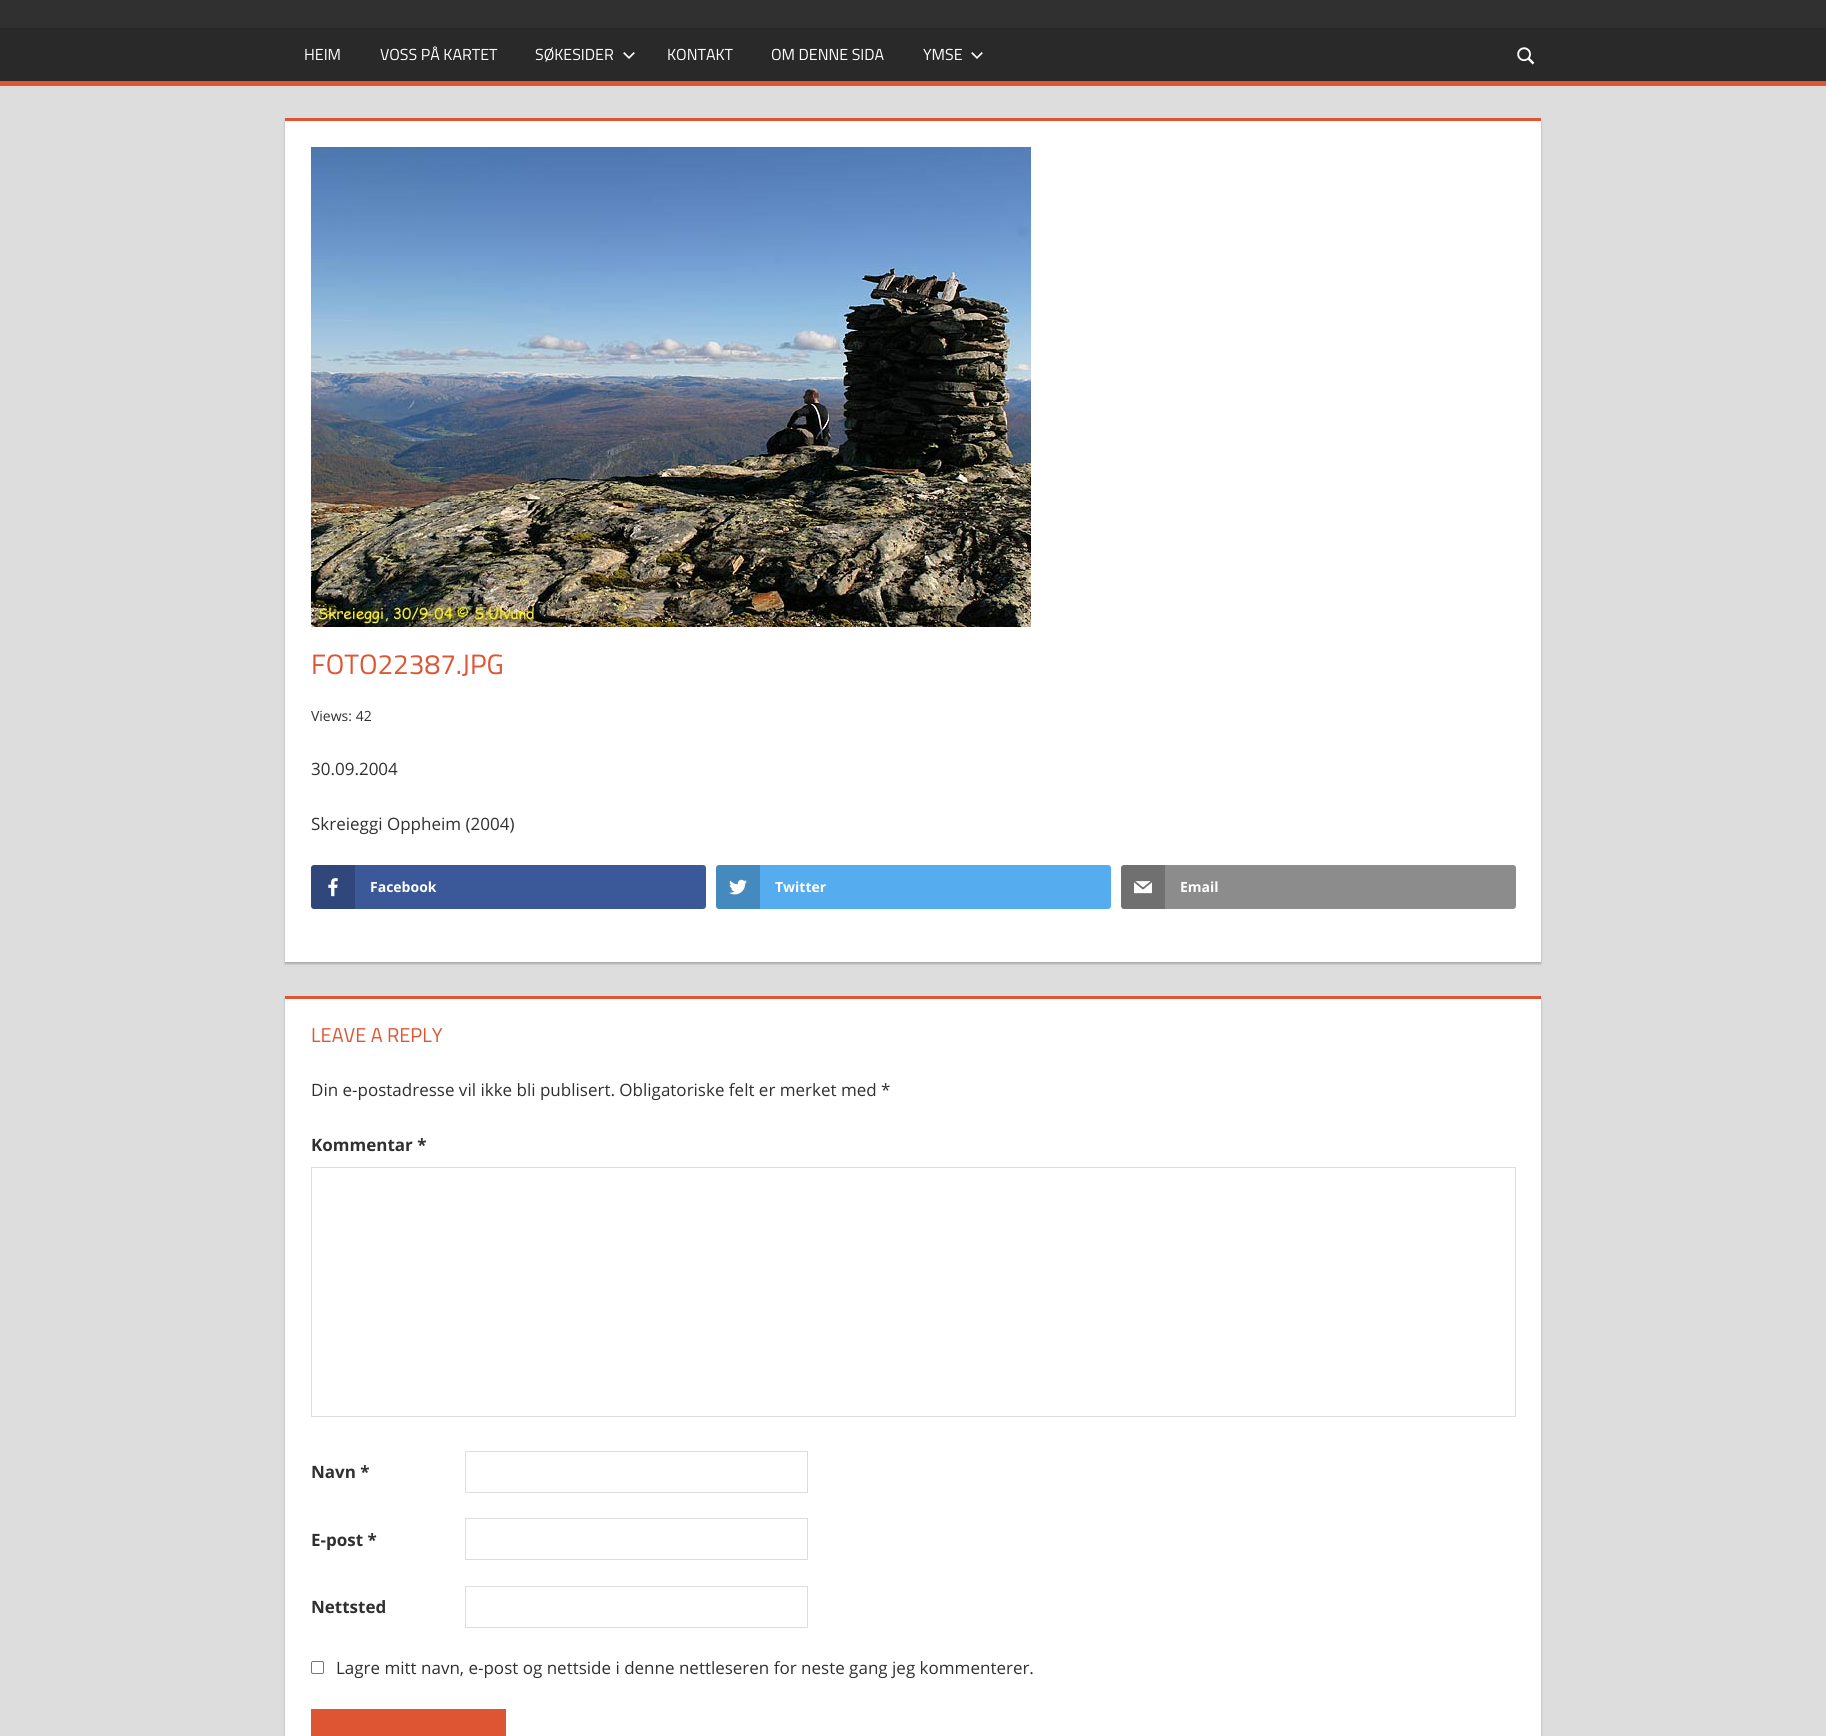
import math
import cairo

surface = cairo.ImageSurface(cairo.FORMAT_RGB24, 1826, 1736)
c = cairo.Context(surface)
options = cairo.FontOptions()
options.set_hint_metrics(cairo.HINT_METRICS_OFF)
options.set_hint_style(cairo.HINT_STYLE_NONE)
c.set_font_options(options)
c.set_miter_limit(4)
def C(code):
 c.set_source_rgb(*(v / 255 for v in bytes.fromhex(code[-6:])))
def F(family, size, italic, bold):
 c.select_font_face(family, cairo.FONT_SLANT_ITALIC if italic else cairo.FONT_SLANT_NORMAL, cairo.FONT_WEIGHT_BOLD if bold else cairo.FONT_WEIGHT_NORMAL)
 c.set_font_size(size)
def T(x, y, s):
 c.move_to(x, y)
 c.show_text(s)
def R(x, y, w, h):
 c.rectangle(x, y, w, h)
 c.fill()
def Q(x, y, w, h, r):
 c.new_sub_path()
 for i, (u, v) in enumerate([(x + w - r, y + h - r), (x + r, y + h - r), (x + r, y + r), (x + w - r, y + r)]):
  c.arc(u, v, r, i * math.pi / 2, (i + 1) * math.pi / 2)
 c.close_path()
def S(x, y, w, h, r, blur, alpha):
 c.push_group_with_content(cairo.CONTENT_ALPHA)
 c.set_operator(cairo.OPERATOR_SOURCE)
 for i in range(15, -16, -2):
  e = blur * i / 6
  if min(w, h) + 2 * e > 0:
   c.set_source_rgba(0, 0, 0, alpha * math.erfc((i - 1) / 8.5) / 2)
   Q(x - e, y - e, w + 2 * e, h + 2 * e, max(0, min(r + e + blur * .6, min(w, h) / 2 + e)))
   c.fill()
 c.mask(c.pop_group())
def I(path, x, y, w, h):
 c.save()
 c.set_source_surface(cairo.ImageSurface.create_from_png(path), x, y)
 c.rectangle(x, y, w, h)
 c.fill()
 c.restore()
C('dddddd')
c.paint()
C('303030')
R(0,0,1826,28)
C('292929')
R(0,29,1826,52)
C('272727')
R(0,28,1826,1)
C('dd5533')
R(0,81,1826,5)
F('Titillium Web',16,0,0)
C('ffffff')
T(304,60,'HEIM')
T(380,60,'VOSS PÅ KARTET')
T(535,60,'SØKESIDER')
I('1.png',623,52,12,7)
T(667,60,'KONTAKT')
T(771,60,'OM DENNE SIDA')
T(923,60,'YMSE')
I('1.png',971,52,12,7)
I('2.png',1517,47,18,18)
C('aaaaaa')
S(285,120,1256,844,0,1,1)
C('ffffff')
R(285,121,1256,841)
C('dd5533')
R(285,118,1256,3)
I('3.png',311,147,720,480)
F('Titillium Web',28,0,0)
T(311,674,'FOTO22387.JPG')
F('Open Sans',14,0,0)
C('303030')
T(311,721,'Views: 42')
F('Open Sans',17,0,0)
T(311,775,'30.09.2004')
T(311,830,'Skreieggi Oppheim (2004)')
C('3b5998')
Q(311,865,395,44,3)
c.fill()
c.set_source_rgba(0,0,0,0.2)
c.new_path()
c.move_to(314,865)
c.line_to(355,865)
c.line_to(355,909)
c.line_to(314,909)
c.curve_to(312.5,909,311,907.5,311,906)
c.line_to(311,868)
c.curve_to(311,866.5,312.5,865,314,865)
c.close_path()
c.fill()
I('4.png',328,878,10,19)
F('Open Sans',14,0,1)
C('ffffff')
T(370,892,'Facebook')
C('55acee')
Q(716,865,395,44,3)
c.fill()
c.set_source_rgba(0,0,0,0.2)
c.new_path()
c.move_to(719,865)
c.line_to(760,865)
c.line_to(760,909)
c.line_to(719,909)
c.curve_to(717.5,909,716,907.5,716,906)
c.line_to(716,868)
c.curve_to(716,866.5,717.5,865,719,865)
c.close_path()
c.fill()
I('5.png',729,879,18,16)
C('ffffff')
T(775,892,'Twitter')
C('8c8c8c')
Q(1121,865,395,44,3)
c.fill()
c.set_source_rgba(0,0,0,0.2)
c.new_path()
c.move_to(1124,865)
c.line_to(1165,865)
c.line_to(1165,909)
c.line_to(1124,909)
c.curve_to(1122.5,909,1121,907.5,1121,906)
c.line_to(1121,868)
c.curve_to(1121,866.5,1122.5,865,1124,865)
c.close_path()
c.fill()
I('6.png',1134,881,18,13)
C('ffffff')
T(1180,892,'Email')
C('aaaaaa')
S(285,998,1256,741,0,1,1)
C('ffffff')
R(285,999,1256,737)
C('dd5533')
R(285,996,1256,3)
F('Titillium Web',20,0,0)
T(311,1042,'LEAVE A REPLY')
F('Open Sans',17,0,0)
C('303030')
T(311,1096,'Din e-postadresse vil ikke bli publisert. Obligatoriske felt er merket med *')
F('Open Sans',17,0,1)
T(311,1151,'Kommentar *')
c.rectangle(311.5,1167.5,1204,249)
C('dddddd')
c.set_line_width(1)
c.stroke()
C('303030')
T(311,1478,'Navn *')
c.rectangle(465.5,1451.5,342,41)
C('dddddd')
c.stroke()
C('303030')
T(311,1546,'E-post *')
c.rectangle(465.5,1518.5,342,41)
C('dddddd')
c.stroke()
C('303030')
T(311,1613,'Nettsted')
c.rectangle(465.5,1586.5,342,41)
C('dddddd')
c.stroke()
Q(311.5,1661.5,12,12,1.5)
C('767676')
c.stroke()
F('Open Sans',17,0,0)
C('303030')
T(336,1674,'Lagre mitt navn, e-post og nettside i denne nettleseren for neste gang jeg kommenterer.')
C('dd5533')
R(311,1709,195,27)
surface.write_to_png('o.png')
